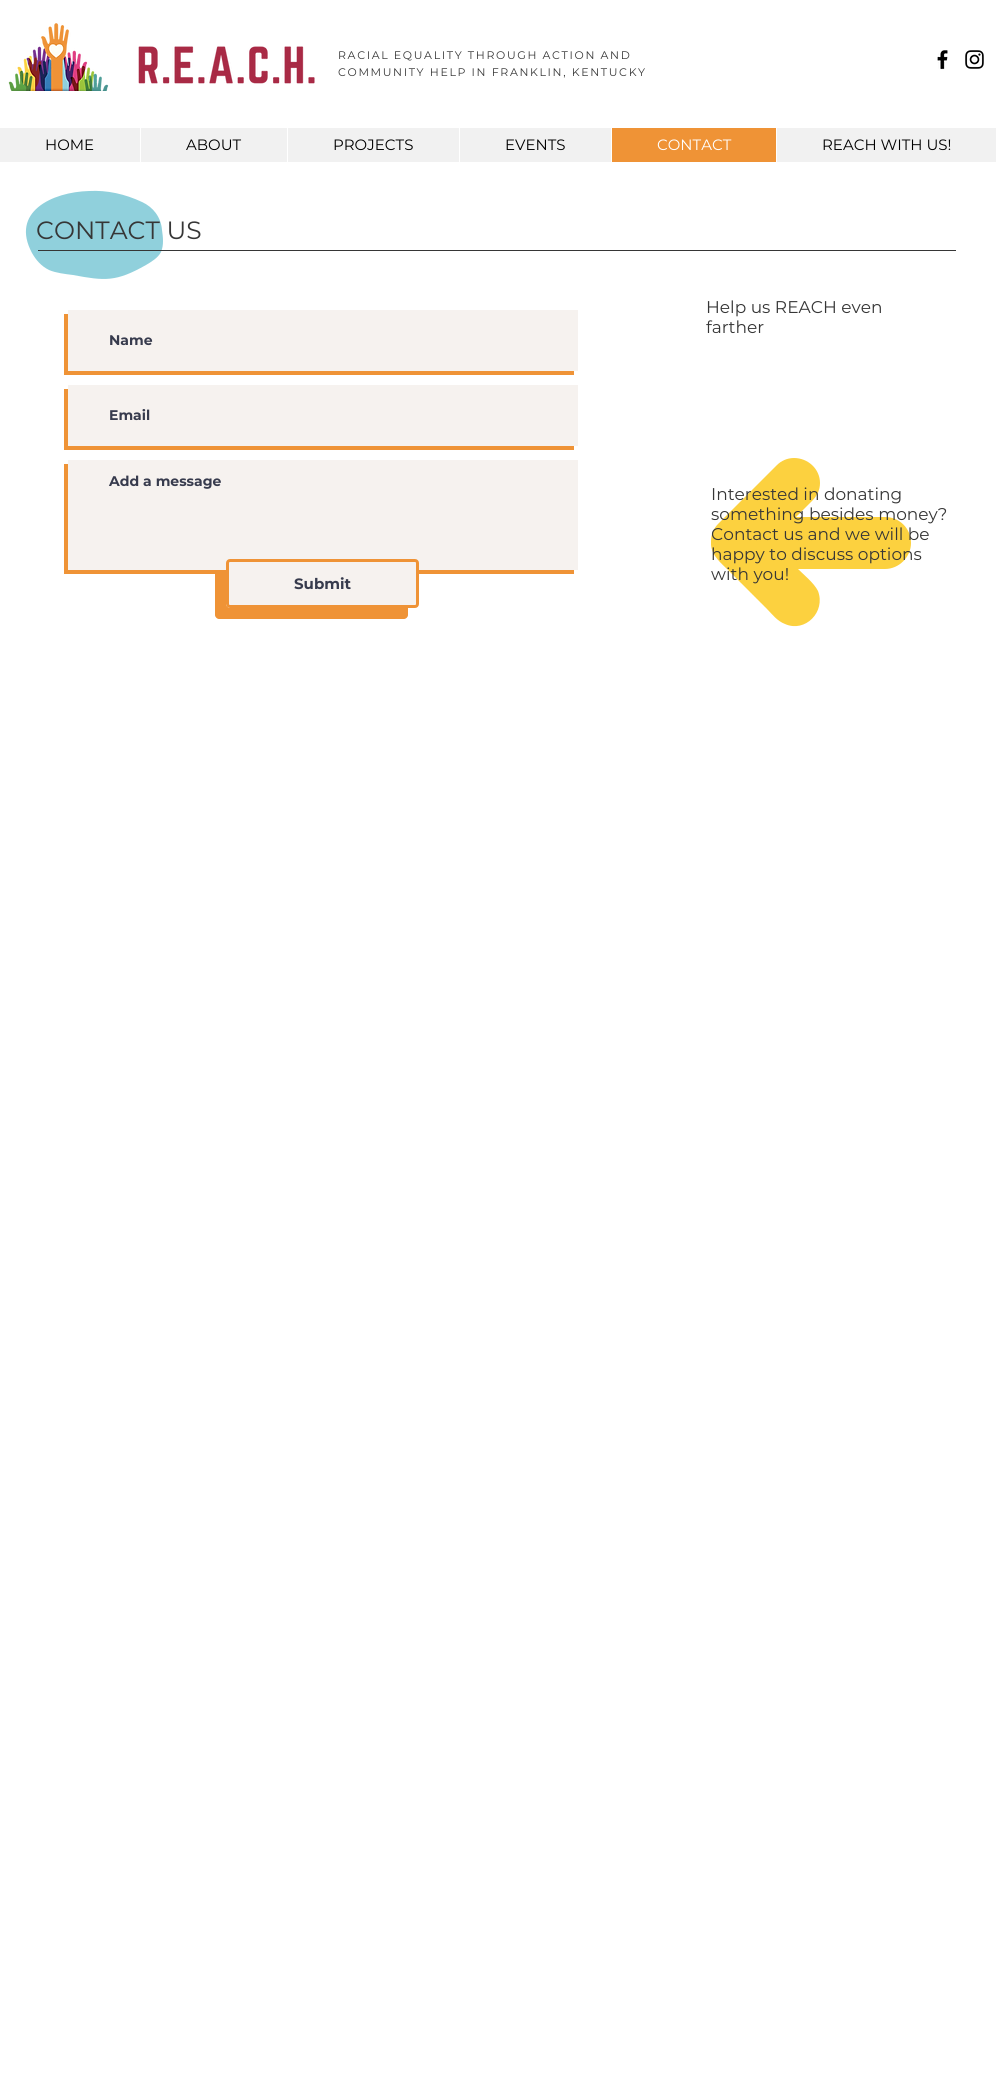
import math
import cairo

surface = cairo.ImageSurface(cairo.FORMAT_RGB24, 996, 2085)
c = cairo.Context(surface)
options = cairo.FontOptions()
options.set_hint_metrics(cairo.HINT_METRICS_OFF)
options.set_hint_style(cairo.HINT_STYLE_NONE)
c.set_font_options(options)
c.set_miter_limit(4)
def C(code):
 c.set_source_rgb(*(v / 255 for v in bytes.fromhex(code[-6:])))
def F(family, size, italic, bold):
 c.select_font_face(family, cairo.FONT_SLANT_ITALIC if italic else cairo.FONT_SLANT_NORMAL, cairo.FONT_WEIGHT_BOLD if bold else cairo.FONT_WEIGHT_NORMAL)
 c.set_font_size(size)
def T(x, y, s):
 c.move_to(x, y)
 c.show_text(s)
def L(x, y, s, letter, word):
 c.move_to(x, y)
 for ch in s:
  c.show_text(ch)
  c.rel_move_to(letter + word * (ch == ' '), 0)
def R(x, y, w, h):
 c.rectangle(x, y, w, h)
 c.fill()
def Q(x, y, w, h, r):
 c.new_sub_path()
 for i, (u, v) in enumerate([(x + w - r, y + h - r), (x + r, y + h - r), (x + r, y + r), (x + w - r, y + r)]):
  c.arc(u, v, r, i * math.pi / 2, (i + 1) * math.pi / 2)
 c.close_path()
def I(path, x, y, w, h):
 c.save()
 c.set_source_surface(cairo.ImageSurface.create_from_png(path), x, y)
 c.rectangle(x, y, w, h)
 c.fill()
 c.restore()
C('ffffff')
c.paint()
I('1.png',8,23,101,68)
I('2.png',138,46,177,38)
F('Montserrat',11,0,0)
C('363636')
L(338,59,'RACIAL EQUALITY THROUGH ACTION AND',1.65,0)
L(338,76,'COMMUNITY HELP IN FRANKLIN, KENTUCKY',1.65,0)
I('3.png',937,50,11,20)
I('4.png',965,50,19,19)
C('f1f1f1')
R(0,128,996,34)
F('Montserrat',15,0,0)
C('000000')
T(45,150,'HOME')
C('ffffff')
R(140,128,1,34)
C('000000')
T(186,150,'ABOUT')
C('ffffff')
R(287,128,1,34)
C('000000')
T(333,150,'PROJECTS')
C('ffffff')
R(459,128,1,34)
C('000000')
T(505,150,'EVENTS')
C('ef9336')
R(612,128,164,34)
C('ffffff')
R(611,128,1,34)
T(657,150,'CONTACT')
R(776,128,1,34)
C('000000')
T(822,150,'REACH WITH US!')
C('90d0dc')
c.new_path()
c.move_to(49,270)
c.curve_to(56,273,65,274,73,275)
c.curve_to(105,281,116,282,146,265)
c.curve_to(151,262,158,258,161,252)
c.curve_to(164,245,163,237,162,230)
c.curve_to(161,217,153,207,142,202)
c.curve_to(125,194,107,190,89,191)
c.curve_to(52,192,10,212,32,253)
c.curve_to(36,260,41,266,49,270)
c.close_path()
c.fill()
F('Montserrat',25,0,0)
C('363636')
T(36,239,'CONTACT US')
R(38,250,918,1)
F('Montserrat',17,0,0)
T(706,313,'Help us REACH even')
T(706,333,'farther')
C('ef9336')
c.new_path()
c.move_to(64,314)
c.line_to(64,375)
c.line_to(574,375)
c.line_to(574,371)
c.line_to(68,371)
c.line_to(68,314)
c.close_path()
c.fill()
C('f6f2ef')
R(68,310,510,61)
F('Montserrat',14,0,1)
C('373b4d')
T(109,345,'Name')
C('ef9336')
c.new_path()
c.move_to(64,389)
c.line_to(64,450)
c.line_to(574,450)
c.line_to(574,446)
c.line_to(68,446)
c.line_to(68,389)
c.close_path()
c.fill()
C('f6f2ef')
R(68,385,510,61)
C('373b4d')
T(109,420,'Email')
C('ef9336')
c.new_path()
c.move_to(64,464)
c.line_to(64,574)
c.line_to(574,574)
c.line_to(574,570)
c.line_to(68,570)
c.line_to(68,464)
c.close_path()
c.fill()
C('f6f2ef')
R(68,460,510,110)
C('373b4d')
T(109,486,'Add a message')
C('ef9336')
c.new_path()
c.move_to(219,570)
c.curve_to(217,570,215,572,215,574)
c.line_to(215,615)
c.curve_to(215,617,217,619,219,619)
c.line_to(404,619)
c.curve_to(406,619,408,617,408,615)
c.line_to(408,608)
c.line_to(230,608)
c.curve_to(228,608,226,606,226,604)
c.line_to(226,570)
c.close_path()
c.fill()
C('f6f2ef')
Q(227.5,560.5,190,46,2.5)
c.fill_preserve()
C('ef9336')
c.set_line_width(3)
c.stroke()
F('Montserrat',15,0,1)
C('373b4d')
T(294,589,'Submit')
C('fcd13f')
c.new_path()
c.move_to(711,541)
c.curve_to(711,534,714,528,718,524)
c.line_to(777,465)
c.curve_to(781,461,787,458,794,458)
c.curve_to(808,458,820,469,820,483)
c.curve_to(820,490,817,496,812,501)
c.line_to(796,517)
c.line_to(885,517)
c.curve_to(899,517,911,528,911,543)
c.curve_to(911,557,899,569,885,569)
c.line_to(798,569)
c.curve_to(804,575,814,583,818,591)
c.curve_to(826,612,805,633,785,624)
c.curve_to(777,621,772,614,767,609)
c.line_to(728,570)
c.curve_to(721,563,712,556,711,545)
c.close_path()
c.fill()
F('Montserrat',17,0,0)
C('363636')
T(711,500,'Interested in donating')
T(711,520,'something besides money?')
T(711,540,'Contact us and we will be')
T(711,560,'happy to discuss options')
T(711,580,'with you!')
surface.write_to_png('o.png')
